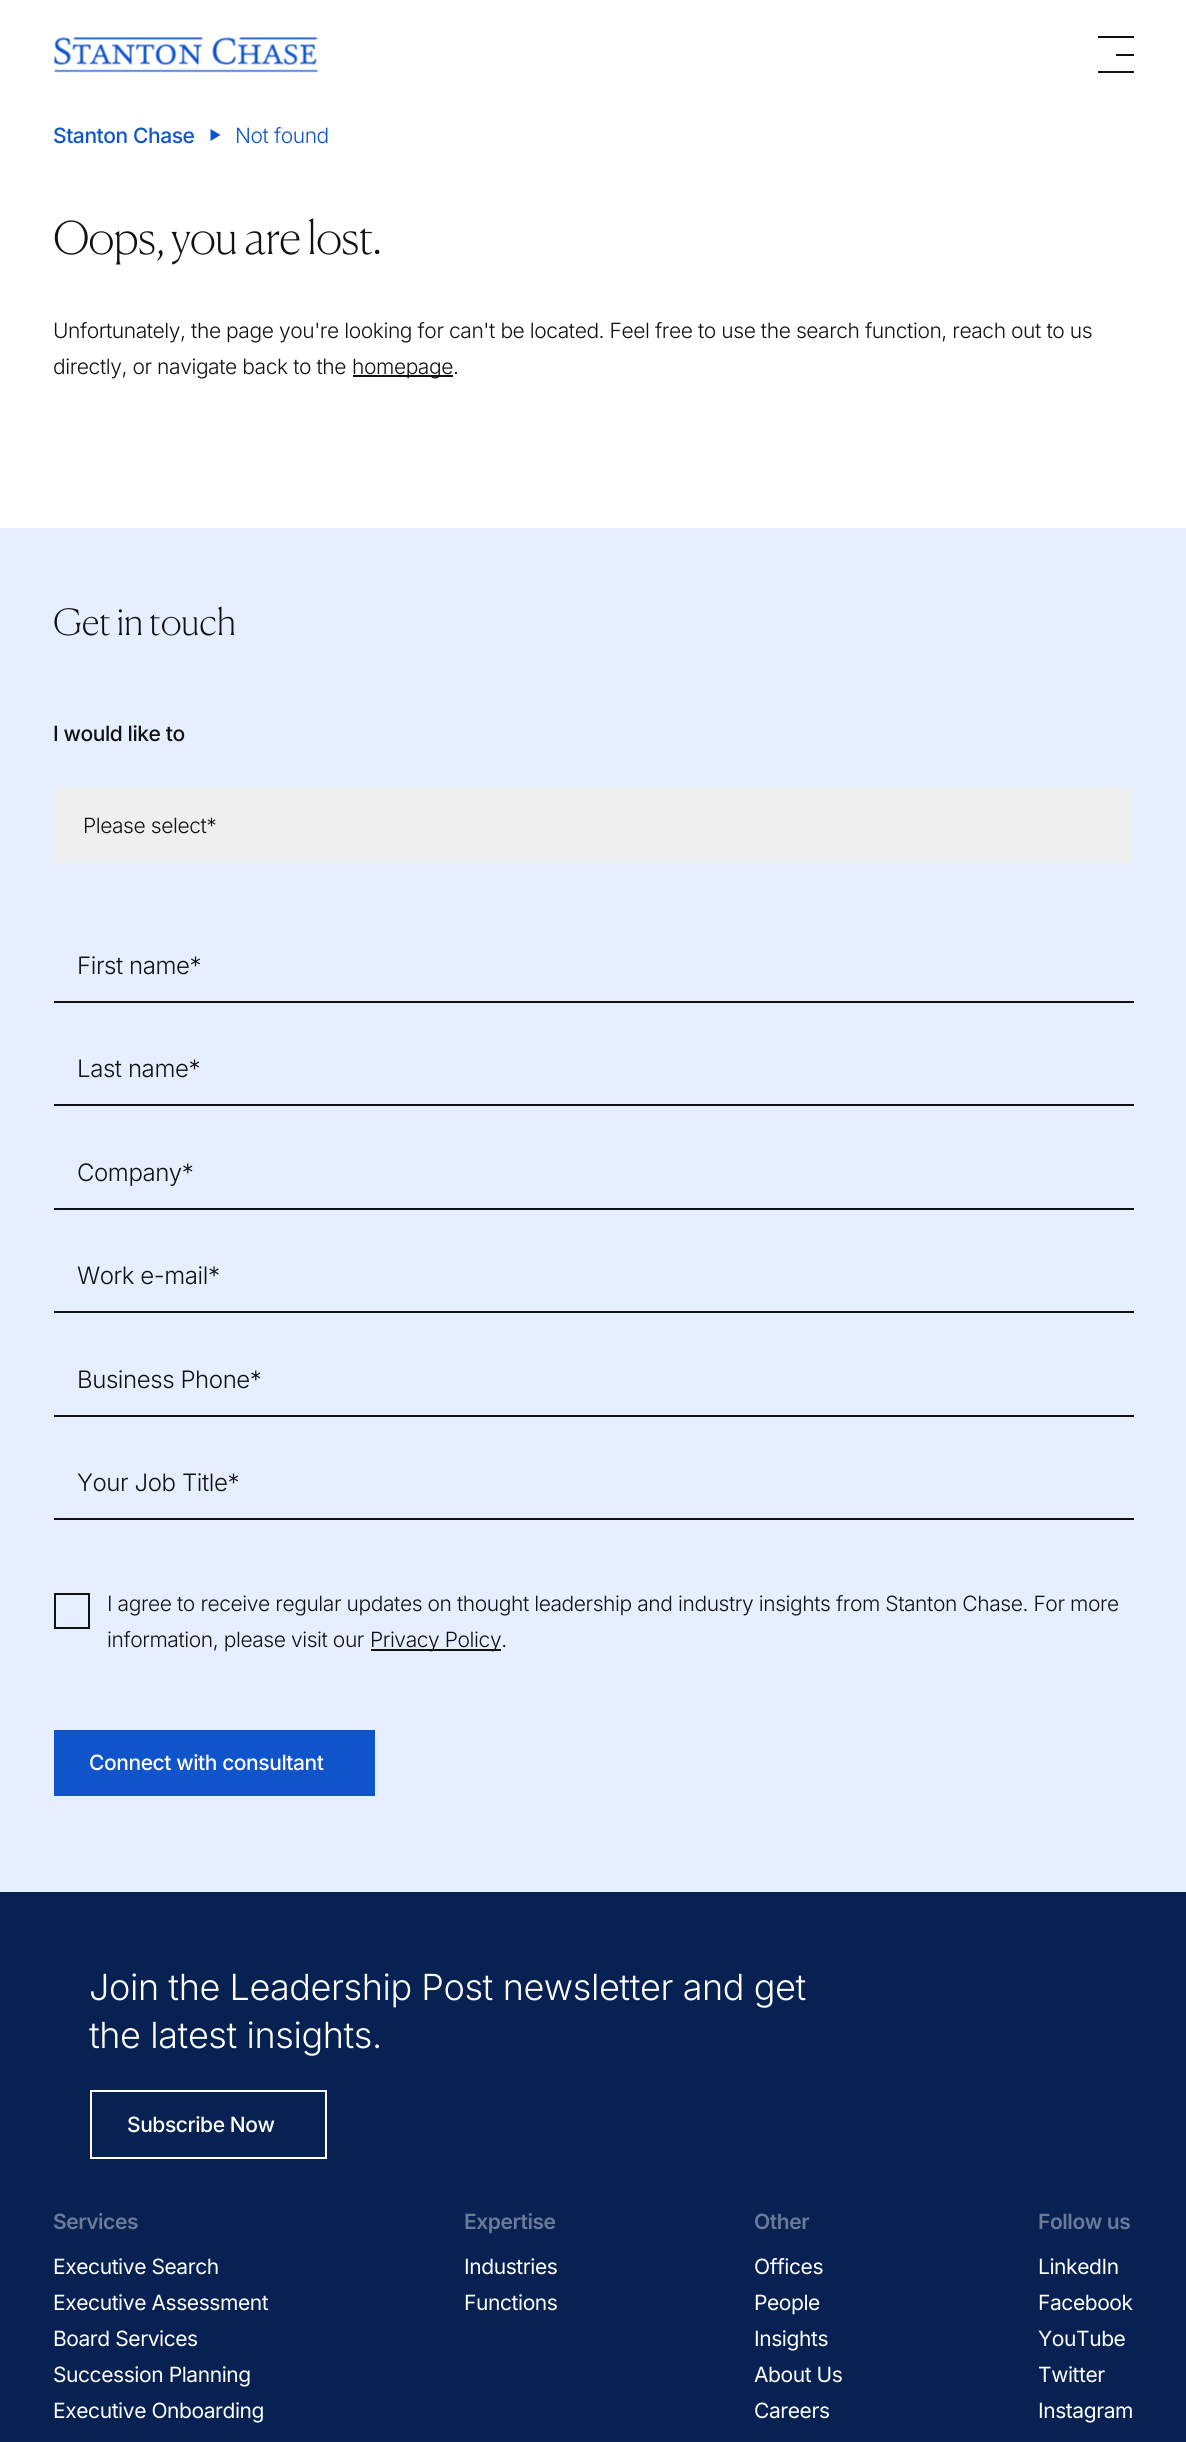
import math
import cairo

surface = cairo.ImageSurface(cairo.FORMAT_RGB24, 1186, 2442)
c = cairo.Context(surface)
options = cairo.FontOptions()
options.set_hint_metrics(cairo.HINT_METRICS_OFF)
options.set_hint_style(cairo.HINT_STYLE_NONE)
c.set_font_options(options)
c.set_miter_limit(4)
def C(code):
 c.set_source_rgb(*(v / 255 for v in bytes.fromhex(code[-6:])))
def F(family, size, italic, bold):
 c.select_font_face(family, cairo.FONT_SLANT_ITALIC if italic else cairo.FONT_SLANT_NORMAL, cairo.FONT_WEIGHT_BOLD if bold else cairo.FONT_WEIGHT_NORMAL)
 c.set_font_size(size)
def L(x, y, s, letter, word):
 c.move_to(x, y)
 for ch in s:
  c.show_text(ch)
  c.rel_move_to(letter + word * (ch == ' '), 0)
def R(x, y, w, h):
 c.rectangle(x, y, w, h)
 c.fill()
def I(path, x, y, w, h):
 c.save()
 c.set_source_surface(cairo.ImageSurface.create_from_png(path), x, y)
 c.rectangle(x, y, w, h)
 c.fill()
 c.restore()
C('ffffff')
c.paint()
I('1.png',54,37,264,36)
C('111111')
R(1098,36,36,2)
R(1116,54,18,2)
R(1098,71,36,2)
F('Inter Medium',21,0,0)
C('1054cc')
L(53,143,'Stanton Chase',-.42,0)
c.new_path()
c.move_to(220.5,135)
c.line_to(210.5,141)
c.line_to(210.5,129)
c.close_path()
c.fill()
F('Inter Light',21,0,0)
L(235,143,'Not found',-.42,0)
F('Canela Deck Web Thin',45,0,0)
C('111111')
L(53,254,'Oops, you are lost.',-1.4,0)
F('Inter Light',21,0,0)
L(53,338,'Unfortunately, the page you\'re looking for can\'t be located. Feel free to use the search function, reach out to us',-.42,0)
L(53,374,'directly, or navigate back to the',-.42,0)
R(353,375,100,2)
L(352,374,'homepage.',-.42,0)
C('e5efff')
R(0,528,1186,1364)
F('Canela Deck Web Thin',36,0,0)
C('111111')
L(53,635,'Get in touch',-.75,0)
F('Inter Medium',21,0,0)
L(53,741,'I would like to',-.42,0)
C('efefef')
R(54,788,1080,75)
F('Inter Light',21,0,0)
C('111111')
L(83,833,'Please select*',-.42,0)
F('Inter Light',24,0,0)
L(77,974,'First name*',-.42,0)
R(54,1001,1080,2)
L(77,1077,'Last name*',-.42,0)
R(54,1104,1080,2)
L(77,1181,'Company*',-.42,0)
R(54,1208,1080,2)
L(77,1284,'Work e-mail*',-.42,0)
R(54,1311,1080,2)
L(77,1388,'Business Phone*',-.42,0)
R(54,1415,1080,2)
L(77,1491,'Your Job Title*',-.42,0)
R(54,1518,1080,2)
c.rectangle(55,1594,34,34)
c.stroke()
F('Inter Light',21,0,0)
L(107,1611,'I agree to receive regular updates on thought leadership and industry insights from Stanton Chase. For more',-.42,0)
L(107,1647,'information, please visit our',-.42,0)
R(371,1649,130,2)
L(370,1647,'Privacy Policy.',-.42,0)
C('1054cc')
R(54,1730,321,66)
F('Inter Medium',21,0,0)
C('ffffff')
L(89,1770,'Connect with consultant',-.42,0)
C('062152')
R(0,1892,1186,550)
F('Inter Light',36,0,0)
C('ffffff')
L(89,2000,'Join the Leadership Post newsletter and get',-.42,0)
L(89,2048,'the latest insights.',-.42,0)
c.rectangle(91,2091,235,67)
c.stroke()
F('Inter Medium',21,0,0)
L(127,2132,'Subscribe Now',-.42,0)
F('Inter SemiBold',21,0,0)
C('6a7a97')
L(53,2229,'Services',-.42,0)
F('Inter',21,0,0)
C('ffffff')
L(53,2274,'Executive Search',-.42,0)
L(53,2310,'Executive Assessment',-.42,0)
L(53,2346,'Board Services',-.42,0)
L(53,2382,'Succession Planning',-.42,0)
L(53,2418,'Executive Onboarding',-.42,0)
F('Inter SemiBold',21,0,0)
C('6a7a97')
L(464,2229,'Expertise',-.42,0)
F('Inter',21,0,0)
C('ffffff')
L(464,2274,'Industries',-.42,0)
L(464,2310,'Functions',-.42,0)
F('Inter SemiBold',21,0,0)
C('6a7a97')
L(754,2229,'Other',-.42,0)
F('Inter',21,0,0)
C('ffffff')
L(754,2274,'Offices',-.42,0)
L(754,2310,'People',-.42,0)
L(754,2346,'Insights',-.42,0)
L(754,2382,'About Us',-.42,0)
L(754,2418,'Careers',-.42,0)
F('Inter SemiBold',21,0,0)
C('6a7a97')
L(1038,2229,'Follow us',-.42,0)
F('Inter',21,0,0)
C('ffffff')
L(1038,2274,'LinkedIn',-.42,0)
L(1038,2310,'Facebook',-.42,0)
L(1038,2346,'YouTube',-.42,0)
L(1038,2382,'Twitter',-.42,0)
L(1038,2418,'Instagram',-.42,0)
surface.write_to_png('o.png')
